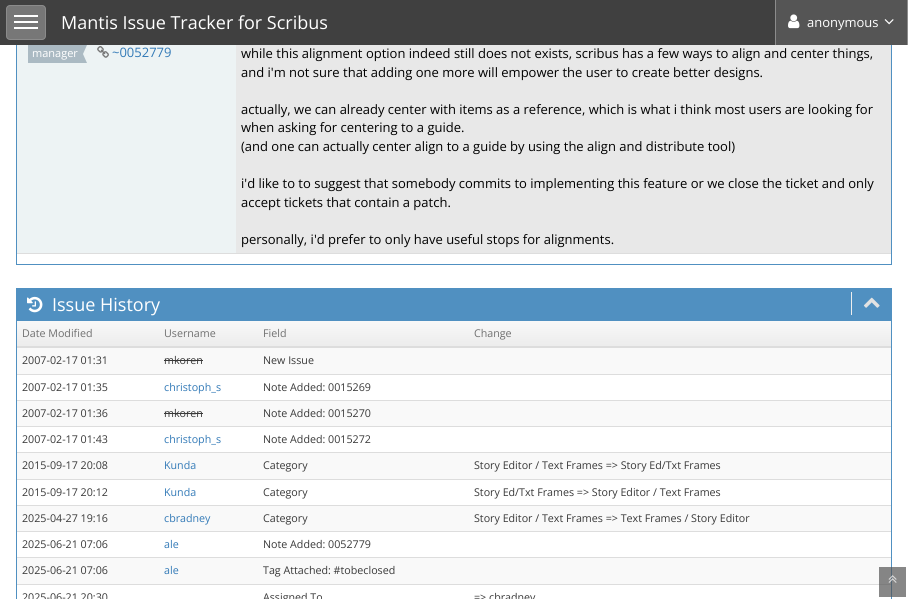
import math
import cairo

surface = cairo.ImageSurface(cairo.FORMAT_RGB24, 908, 599)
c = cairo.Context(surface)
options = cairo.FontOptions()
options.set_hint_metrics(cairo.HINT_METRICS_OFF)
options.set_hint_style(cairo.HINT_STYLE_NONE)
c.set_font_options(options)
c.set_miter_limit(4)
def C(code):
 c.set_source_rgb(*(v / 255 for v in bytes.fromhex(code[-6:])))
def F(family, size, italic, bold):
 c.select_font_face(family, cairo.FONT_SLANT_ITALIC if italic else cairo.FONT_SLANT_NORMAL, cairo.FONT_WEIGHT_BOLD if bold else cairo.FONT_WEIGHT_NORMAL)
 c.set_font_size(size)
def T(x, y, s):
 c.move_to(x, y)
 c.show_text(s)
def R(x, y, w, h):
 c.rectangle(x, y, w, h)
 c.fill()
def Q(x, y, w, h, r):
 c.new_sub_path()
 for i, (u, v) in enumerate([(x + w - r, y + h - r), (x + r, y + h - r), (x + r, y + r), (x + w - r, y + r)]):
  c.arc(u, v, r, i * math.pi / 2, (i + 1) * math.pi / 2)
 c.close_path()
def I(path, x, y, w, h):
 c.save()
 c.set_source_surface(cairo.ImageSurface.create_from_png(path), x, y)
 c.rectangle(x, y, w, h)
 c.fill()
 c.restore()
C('ffffff')
c.paint()
c.rectangle(16.5,-.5,875,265)
C('5090c1')
c.set_line_width(1)
c.stroke()
C('404040')
R(0,0,775,45)
C('777777')
Q(6,5,40,35,4)
c.fill()
Q(6.5,5.5,39,34,3.5)
c.set_source_rgba(1,1,1,0.15)
c.stroke()
C('ffffff')
R(14,15,24,2)
R(14,21,24,2)
R(14,27,24,2)
F('Open Sans',18,0,0)
T(61,29,'Mantis Issue Tracker for Scribus')
C('8c8c8c')
R(907,0,1,45)
R(775,0,1,45)
C('555555')
R(776,0,131,45)
I('1.png',788,14,12,15)
F('Open Sans',13,0,0)
C('ffffff')
T(807,27,'anonymous')
I('2.png',884,19,10,6)
C('edf3f4')
R(17,45,219,208)
C('abbac3')
R(28,45,55,18)
F('Open Sans',11,0,0)
C('ffffff')
T(32,57,'manager')
C('abbac3')
c.new_path()
c.move_to(79,45)
c.line_to(87,45)
c.line_to(83,54)
c.close_path()
c.move_to(87,63)
c.line_to(79,63)
c.line_to(83,54)
c.close_path()
c.fill()
I('3.png',97,46,12,12)
F('Open Sans',13,0,0)
C('337ab7')
T(112,57,'~0052779')
C('e8e8e8')
R(236,45,655,208)
C('000000')
T(241,58,'while this alignment option indeed still does not exists, scribus has a few ways to align and center things,')
T(241,77,'and i\'m not sure that adding one more will empower the user to create better designs.')
T(241,114,'actually, we can already center with items as a reference, which is what i think most users are looking for')
T(241,132,'when asking for centering to a guide.')
T(241,151,'(and one can actually center align to a guide by using the align and distribute tool)')
T(241,188,'i\'d like to to suggest that somebody commits to implementing this feature or we close the ticket and only')
T(241,207,'accept tickets that contain a patch.')
T(241,244,'personally, i\'d prefer to only have useful stops for alignments.')
C('dddddd')
R(17,253,874,1)
c.rectangle(16.5,288.5,875,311)
C('5090c1')
c.stroke()
R(17,289,874,32)
I('4.png',27,296,16,17)
F('Open Sans',18,0,0)
C('ffffff')
T(52,311,'Issue History')
C('eeeeee')
R(851,292,1,23)
I('5.png',863,297,17,11)
gradient = cairo.LinearGradient(454,321,454,347)
gradient.add_color_stop_rgba(0,0.973,0.973,0.973,1)
gradient.add_color_stop_rgba(1,0.925,0.925,0.925,1)
c.set_source(gradient)
R(17,321,874,25)
F('Open Sans',10.7,0,0)
C('707070')
T(22,337,'Date Modified')
T(164,337,'Username')
T(263,337,'Field')
C('dddddd')
R(17,346,874,2)
C('707070')
T(474,337,'Change')
C('f9f9f9')
R(17,348,874,26)
C('393939')
T(22,364,'2007-02-17 01:31')
T(164,364,'mkoren')
R(164,360,39,1)
T(263,364,'New Issue')
C('dddddd')
R(17,374,874,1)
C('393939')
T(22,391,'2007-02-17 01:35')
C('337ab7')
T(164,391,'christoph_s')
C('393939')
T(263,391,'Note Added: 0015269')
C('f9f9f9')
R(17,401,874,25)
C('dddddd')
R(17,400,874,1)
C('393939')
T(22,417,'2007-02-17 01:36')
T(164,417,'mkoren')
R(164,413,39,1)
T(263,417,'Note Added: 0015270')
C('dddddd')
R(17,426,874,1)
C('393939')
T(22,443,'2007-02-17 01:43')
C('337ab7')
T(164,443,'christoph_s')
C('393939')
T(263,443,'Note Added: 0015272')
C('f9f9f9')
R(17,453,874,26)
C('393939')
T(22,469,'2015-09-17 20:08')
C('337ab7')
T(164,469,'Kunda')
C('393939')
T(263,469,'Category')
C('dddddd')
R(17,452,874,1)
C('393939')
T(474,469,'Story Editor / Text Frames => Story Ed/Txt Frames')
T(22,496,'2015-09-17 20:12')
C('337ab7')
T(164,496,'Kunda')
C('393939')
T(263,496,'Category')
C('dddddd')
R(17,479,874,1)
C('393939')
T(474,496,'Story Ed/Txt Frames => Story Editor / Text Frames')
C('f9f9f9')
R(17,506,874,25)
C('393939')
T(22,522,'2025-04-27 19:16')
C('337ab7')
T(164,522,'cbradney')
C('393939')
T(263,522,'Category')
C('dddddd')
R(17,505,874,1)
C('393939')
T(474,522,'Story Editor / Text Frames => Text Frames / Story Editor')
C('dddddd')
R(17,531,874,1)
C('393939')
T(22,548,'2025-06-21 07:06')
C('337ab7')
T(164,548,'ale')
C('393939')
T(263,548,'Note Added: 0052779')
C('f9f9f9')
R(17,558,874,26)
C('dddddd')
R(17,557,874,1)
C('393939')
T(22,574,'2025-06-21 07:06')
C('337ab7')
T(164,574,'ale')
C('393939')
T(263,574,'Tag Attached: #tobeclosed')
T(22,601,'2025-06-21 20:30')
T(263,601,'Assigned To')
C('dddddd')
R(17,584,874,1)
C('393939')
T(474,601,'=> cbradney')
c.set_source_rgba(0.333,0.333,0.333,0.7)
R(879,567,27,30)
I('6.png',888,575,9,8)
surface.write_to_png('o.png')
